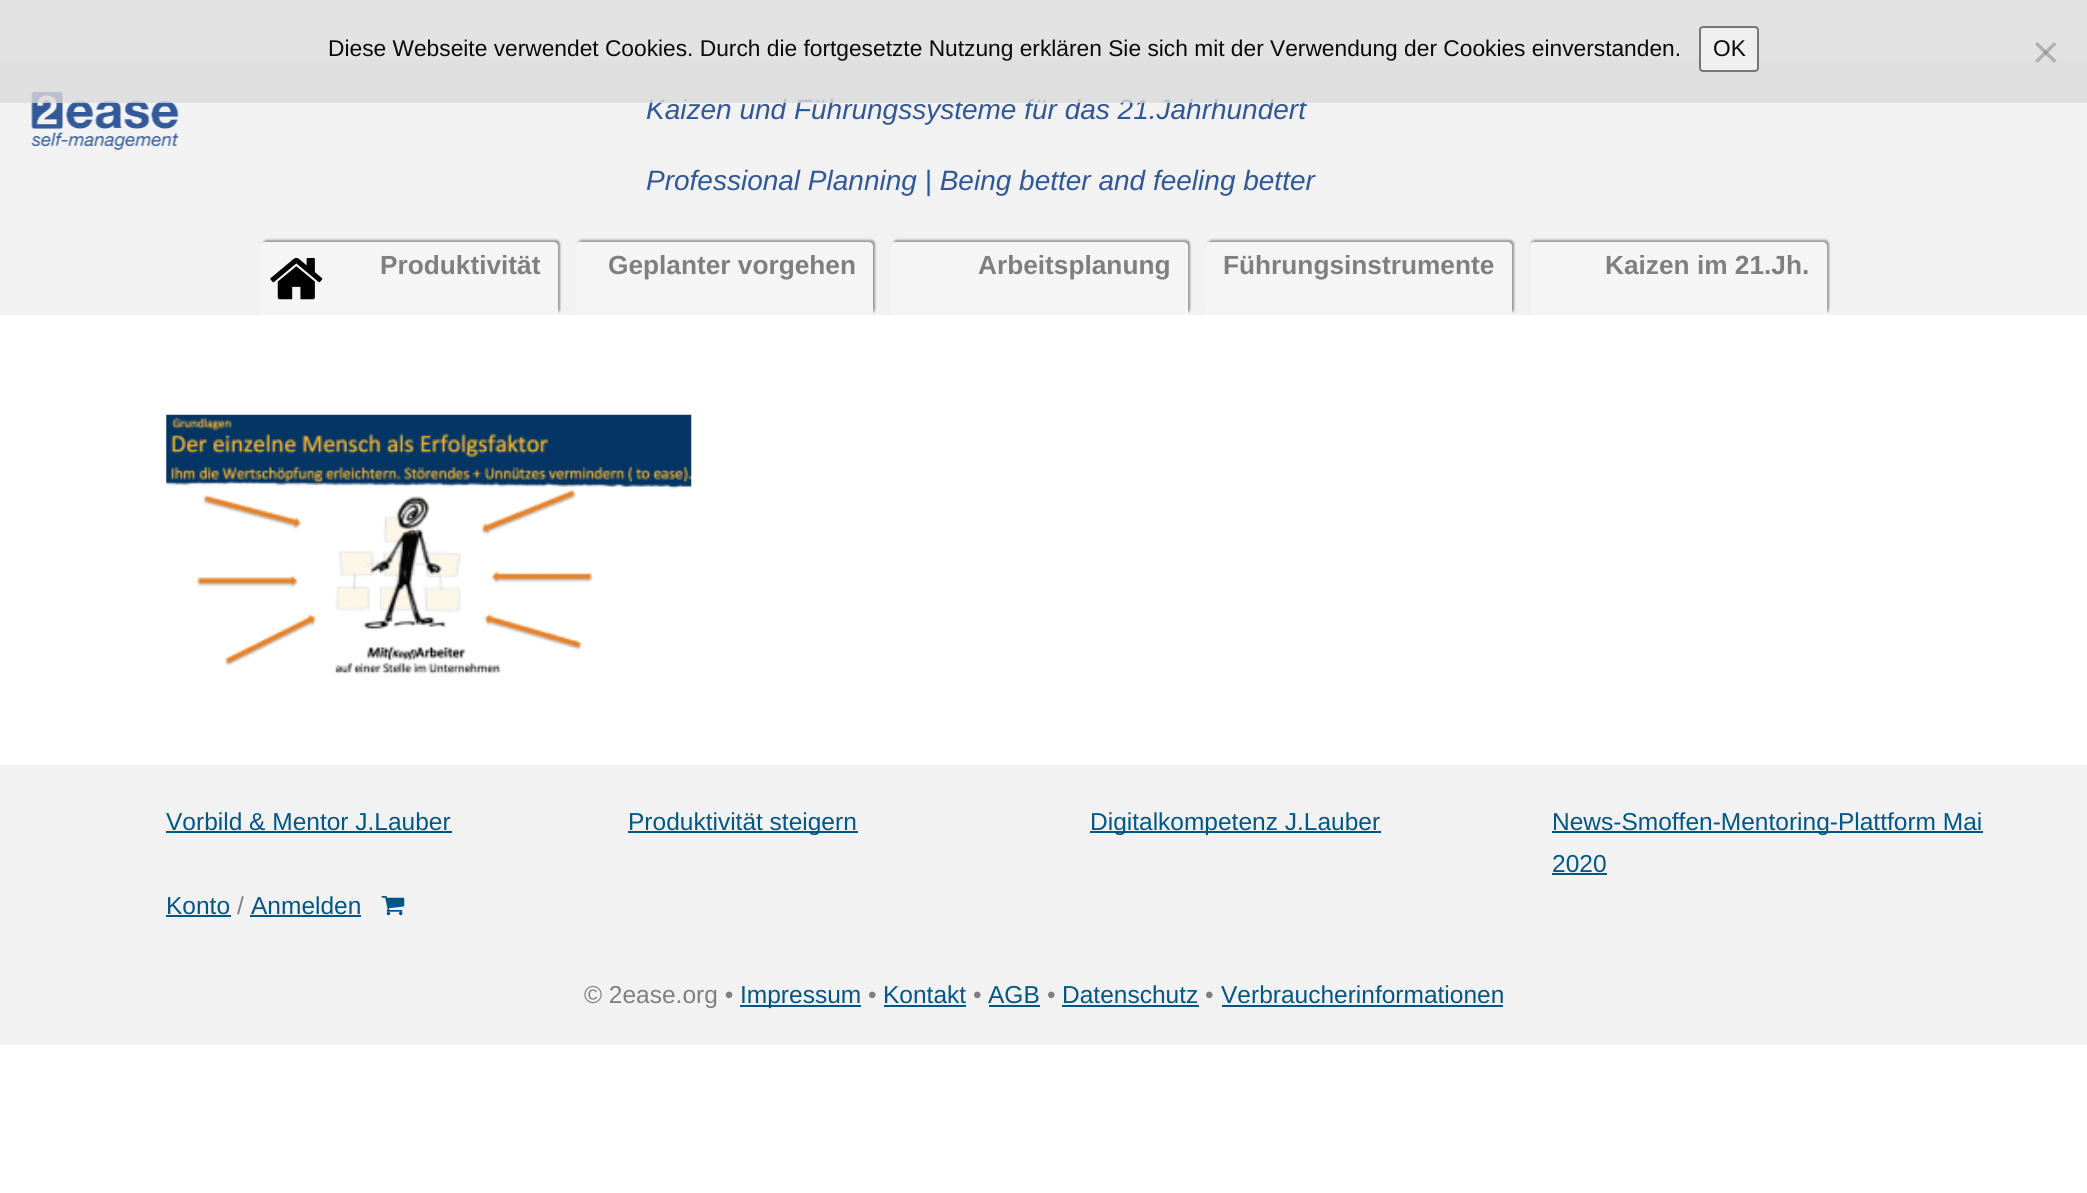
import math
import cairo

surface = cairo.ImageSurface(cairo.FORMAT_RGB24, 2087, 1193)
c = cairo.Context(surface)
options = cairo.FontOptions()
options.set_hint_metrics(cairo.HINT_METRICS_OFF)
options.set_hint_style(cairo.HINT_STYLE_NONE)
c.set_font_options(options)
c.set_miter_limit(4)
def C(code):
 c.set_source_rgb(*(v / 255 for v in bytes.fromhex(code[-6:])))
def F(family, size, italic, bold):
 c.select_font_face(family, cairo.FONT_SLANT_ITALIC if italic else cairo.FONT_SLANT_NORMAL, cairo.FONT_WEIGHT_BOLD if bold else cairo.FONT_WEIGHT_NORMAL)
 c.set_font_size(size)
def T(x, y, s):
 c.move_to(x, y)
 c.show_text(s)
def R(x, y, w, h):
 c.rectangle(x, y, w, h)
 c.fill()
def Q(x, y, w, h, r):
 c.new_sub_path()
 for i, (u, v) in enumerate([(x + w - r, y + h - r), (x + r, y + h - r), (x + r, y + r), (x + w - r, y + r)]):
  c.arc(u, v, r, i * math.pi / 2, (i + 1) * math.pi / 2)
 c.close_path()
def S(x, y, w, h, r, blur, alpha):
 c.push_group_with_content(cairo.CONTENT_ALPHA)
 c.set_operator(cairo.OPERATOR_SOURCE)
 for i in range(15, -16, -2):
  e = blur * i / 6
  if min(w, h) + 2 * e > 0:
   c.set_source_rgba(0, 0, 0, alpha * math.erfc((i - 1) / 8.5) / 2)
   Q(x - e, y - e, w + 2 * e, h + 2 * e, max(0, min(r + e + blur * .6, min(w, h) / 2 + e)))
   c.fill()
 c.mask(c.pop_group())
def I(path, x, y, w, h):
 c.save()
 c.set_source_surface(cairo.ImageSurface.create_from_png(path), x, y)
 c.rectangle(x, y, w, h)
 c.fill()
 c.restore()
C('ffffff')
c.paint()
C('f2f2f2')
R(0,60,2087,255)
I('1.png',31,91,148,59)
F('Liberation Sans',28,1,0)
C('315795')
T(646,119,'Kaizen und Führungssysteme für das 21.Jahrhundert')
c.set_source_rgba(0.859,0.859,0.859,0.8)
R(0,0,2087,103)
F('Liberation Sans',22.75,0,0)
C('0a0a0a')
T(328,56,'Diese Webseite verwendet Cookies. Durch die fortgesetzte Nutzung erklären Sie sich mit der Verwendung der Cookies einverstanden.')
C('efefef')
Q(1700,27,58,44,3)
c.fill_preserve()
C('767676')
c.stroke()
C('0a0a0a')
T(1713,56,'OK')
c.set_source_rgba(0.502,0.502,0.502,0.5)
c.new_path()
c.move_to(2054,42)
c.line_to(2056.5,44.5)
c.line_to(2037.5,63)
c.line_to(2035,60.5)
c.close_path()
c.fill()
c.new_path()
c.move_to(2035,44.5)
c.line_to(2037.5,42)
c.line_to(2056.5,60.5)
c.line_to(2054,63)
c.close_path()
c.fill()
F('Liberation Sans',28,1,0)
C('315795')
T(646,190,'Professional Planning | Being better and feeling better')
C('999999')
S(263,240,297,73,4,1,1)
C('f5f5f5')
c.new_path()
c.move_to(265,242)
c.line_to(554,242)
c.curve_to(556,242,558,244,558,246)
c.line_to(558,315)
c.line_to(261,315)
c.line_to(261,246)
c.curve_to(261,244,263,242,265,242)
c.close_path()
c.fill()
I('2.png',270,257,53,43)
F('Liberation Sans',26.25,0,1)
C('7f7f7f')
T(380,274,'Produktivität')
C('999999')
S(578,240,297,73,4,1,1)
C('f5f5f5')
c.new_path()
c.move_to(580,242)
c.line_to(869,242)
c.curve_to(871,242,873,244,873,246)
c.line_to(873,315)
c.line_to(576,315)
c.line_to(576,246)
c.curve_to(576,244,578,242,580,242)
c.close_path()
c.fill()
C('7f7f7f')
T(608,274,'Geplanter vorgehen')
C('999999')
S(893,240,297,73,4,1,1)
C('f5f5f5')
c.new_path()
c.move_to(895,242)
c.line_to(1184,242)
c.curve_to(1186,242,1188,244,1188,246)
c.line_to(1188,315)
c.line_to(891,315)
c.line_to(891,246)
c.curve_to(891,244,893,242,895,242)
c.close_path()
c.fill()
C('7f7f7f')
T(978,274,'Arbeitsplanung')
C('999999')
S(1208,240,306,73,4,1,1)
C('f5f5f5')
c.new_path()
c.move_to(1210,242)
c.line_to(1508,242)
c.curve_to(1510,242,1512,244,1512,246)
c.line_to(1512,315)
c.line_to(1206,315)
c.line_to(1206,246)
c.curve_to(1206,244,1208,242,1210,242)
c.close_path()
c.fill()
C('7f7f7f')
T(1223,274,'Führungsinstrumente')
C('999999')
S(1531,240,298,73,4,1,1)
C('f5f5f5')
c.new_path()
c.move_to(1534,242)
c.line_to(1823,242)
c.curve_to(1825,242,1827,244,1827,246)
c.line_to(1827,315)
c.line_to(1530,315)
c.line_to(1530,246)
c.curve_to(1530,244,1532,242,1534,242)
c.close_path()
c.fill()
C('7f7f7f')
T(1605,274,'Kaizen im 21.Jh.')
I('3.png',166,414,526,260)
C('f2f2f2')
R(0,765,2087,280)
F('Liberation Sans',24.5,0,0)
C('035682')
T(166,830,'Vorbild & Mentor J.Lauber')
R(166,831,286,2)
R(628,831,230,2)
T(628,830,'Produktivität steigern')
R(1090,831,291,2)
T(1090,830,'Digitalkompetenz J.Lauber')
R(1552,831,431,2)
T(1552,830,'News-Smoffen-Mentoring-Plattform Mai')
T(1552,872,'2020')
R(1552,873,55,2)
T(166,914,'Konto')
R(166,915,65,2)
C('7f7f7f')
T(237,914,'/')
C('035682')
T(251,914,'Anmelden')
R(250,915,111,2)
I('4.png',381,896,24,20)
C('7f7f7f')
T(584,1003,'© 2ease.org •')
C('035682')
R(740,1005,121,2)
T(740,1003,'Impressum')
C('7f7f7f')
T(868,1003,'•')
C('035682')
T(883,1003,'Kontakt')
R(884,1005,82,2)
C('7f7f7f')
T(973,1003,'•')
C('035682')
T(988,1003,'AGB')
R(989,1005,51,2)
C('7f7f7f')
T(1047,1003,'•')
C('035682')
T(1062,1003,'Datenschutz')
R(1062,1005,137,2)
C('7f7f7f')
T(1205,1003,'•')
C('035682')
T(1221,1003,'Verbraucherinformationen')
R(1222,1005,281,2)
surface.write_to_png('o.png')
